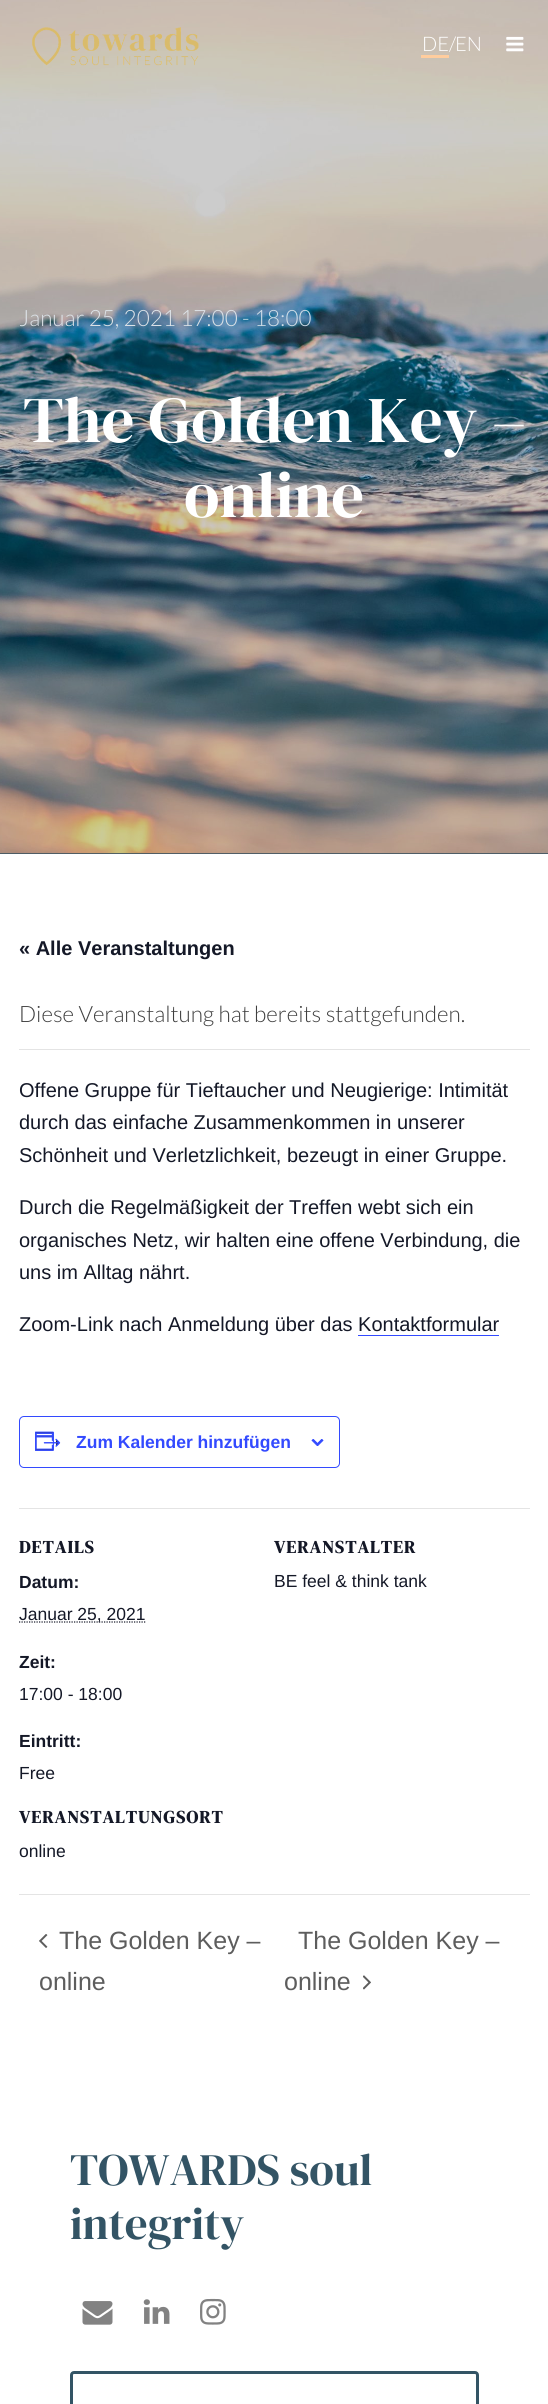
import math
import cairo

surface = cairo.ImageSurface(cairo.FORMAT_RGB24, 548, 2404)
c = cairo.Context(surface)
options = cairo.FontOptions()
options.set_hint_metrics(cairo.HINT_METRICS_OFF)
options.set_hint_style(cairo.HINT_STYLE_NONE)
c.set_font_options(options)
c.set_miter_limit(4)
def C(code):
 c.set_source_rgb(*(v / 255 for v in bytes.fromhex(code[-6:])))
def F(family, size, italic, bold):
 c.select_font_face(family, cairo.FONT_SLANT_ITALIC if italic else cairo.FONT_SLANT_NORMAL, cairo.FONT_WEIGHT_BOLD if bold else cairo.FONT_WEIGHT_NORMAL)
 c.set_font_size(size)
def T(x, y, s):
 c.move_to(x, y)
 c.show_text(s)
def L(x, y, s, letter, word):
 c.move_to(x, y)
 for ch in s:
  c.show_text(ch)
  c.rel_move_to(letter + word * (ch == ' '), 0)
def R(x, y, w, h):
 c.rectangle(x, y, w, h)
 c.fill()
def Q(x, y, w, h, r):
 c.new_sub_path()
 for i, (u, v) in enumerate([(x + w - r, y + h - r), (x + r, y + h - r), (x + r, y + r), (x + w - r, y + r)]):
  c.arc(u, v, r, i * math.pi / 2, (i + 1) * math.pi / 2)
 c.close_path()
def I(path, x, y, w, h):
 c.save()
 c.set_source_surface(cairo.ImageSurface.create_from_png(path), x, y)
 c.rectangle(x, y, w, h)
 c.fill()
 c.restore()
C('ffffff')
c.paint()
C('294351')
R(0,853,548,1)
I('3.png',0,0,548,854)
I('1.png',32,27,167,39)
F('Lato Light',20,0,0)
C('ffffff')
T(422,51,'DE/')
C('ffcd9e')
R(421,55,28,3)
C('ffffff')
T(455,51,'EN')
I('2.png',506,36,18,16)
F('Lato Light',22.5,0,0)
C('dce2e7')
T(19,326,'Januar 25, 2021 17:00')
C('c7dbe6')
T(242,326,'-')
C('d1dee8')
T(254,326,'18:00')
F('DM Serif Display',65,0,0)
C('ffffff')
T(23,442,'The Golden Key –')
T(184,517,'online')
F('Liberation Sans',20,0,1)
C('141827')
T(19,955,'« Alle Veranstaltungen')
C('e4e4e4')
R(19,1049,511,1)
F('Lato Light',22.5,0,0)
C('3f3f3f')
T(19,1022,'Diese Veranstaltung hat bereits stattgefunden.')
F('Liberation Sans',20,0,0)
C('141827')
T(19,1097,'Offene Gruppe für Tieftaucher und Neugierige: Intimität')
T(19,1129,'durch das einfache Zusammenkommen in unserer')
T(19,1162,'Schönheit und Verletzlichkeit, bezeugt in einer Gruppe.')
T(19,1214,'Durch die Regelmäßigkeit der Treffen webt sich ein')
T(19,1247,'organisches Netz, wir halten eine offene Verbindung, die')
T(19,1279,'uns im Alltag nährt.')
T(19,1331,'Zoom-Link nach Anmeldung über das Kontaktformular')
C('334aff')
R(358,1335,141,1)
Q(19.5,1416.5,320,51,4.5)
c.set_line_width(1)
c.stroke()
I('4.png',35,1431,26,20)
F('Liberation Sans',17.5,0,1)
T(76,1448,'Zum Kalender hinzufügen')
I('5.png',311,1439,13,7)
C('e4e4e4')
R(19,1508,511,1)
F('DM Serif Display',17.5,0,1)
C('141827')
L(19,1553,'DETAILS',1.25,0)
F('Liberation Sans',17.5,0,1)
T(19,1588,'Datum:')
c.new_path()
c.move_to(19,1622)
c.line_to(145.5,1622)
c.set_line_width(1.2)
c.set_dash([1.25,1.25])
c.stroke()
F('Liberation Sans',17.5,0,0)
T(19,1620,'Januar 25, 2021')
F('Liberation Sans',17.5,0,1)
T(19,1668,'Zeit:')
F('Liberation Sans',17.5,0,0)
T(19,1700,'17:00 - 18:00')
F('Liberation Sans',17.5,0,1)
T(19,1747,'Eintritt:')
F('Liberation Sans',17.5,0,0)
T(19,1779,'Free')
F('DM Serif Display',17.5,0,1)
L(274,1553,'VERANSTALTER',1.25,0)
F('Liberation Sans',17.5,0,0)
T(274,1587,'BE feel & think tank')
F('DM Serif Display',17.5,0,1)
L(19,1823,'VERANSTALTUNGSORT',1.25,0)
F('Liberation Sans',17.5,0,0)
T(19,1857,'online')
C('e4e4e4')
R(19,1894,511,1)
I('6.png',39,1934,9,14)
F('Liberation Sans',25,0,0)
C('5d5d5d')
T(59,1949,'The Golden Key –')
T(39,1990,'online')
T(298,1949,'The Golden Key –')
T(284,1990,'online')
I('7.png',363,1975,8,15)
F('DM Serif Display',45,0,0)
C('335465')
T(70,2185,'TOWARDS soul')
T(70,2239,'integrity')
I('8.png',82,2301,31,24)
I('9.png',143,2299,27,25)
I('10.png',200,2298,26,27)
Q(71.5,2372.5,406,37,2.5)
c.set_line_width(3)
c.set_dash([])
c.stroke()
surface.write_to_png('o.png')
